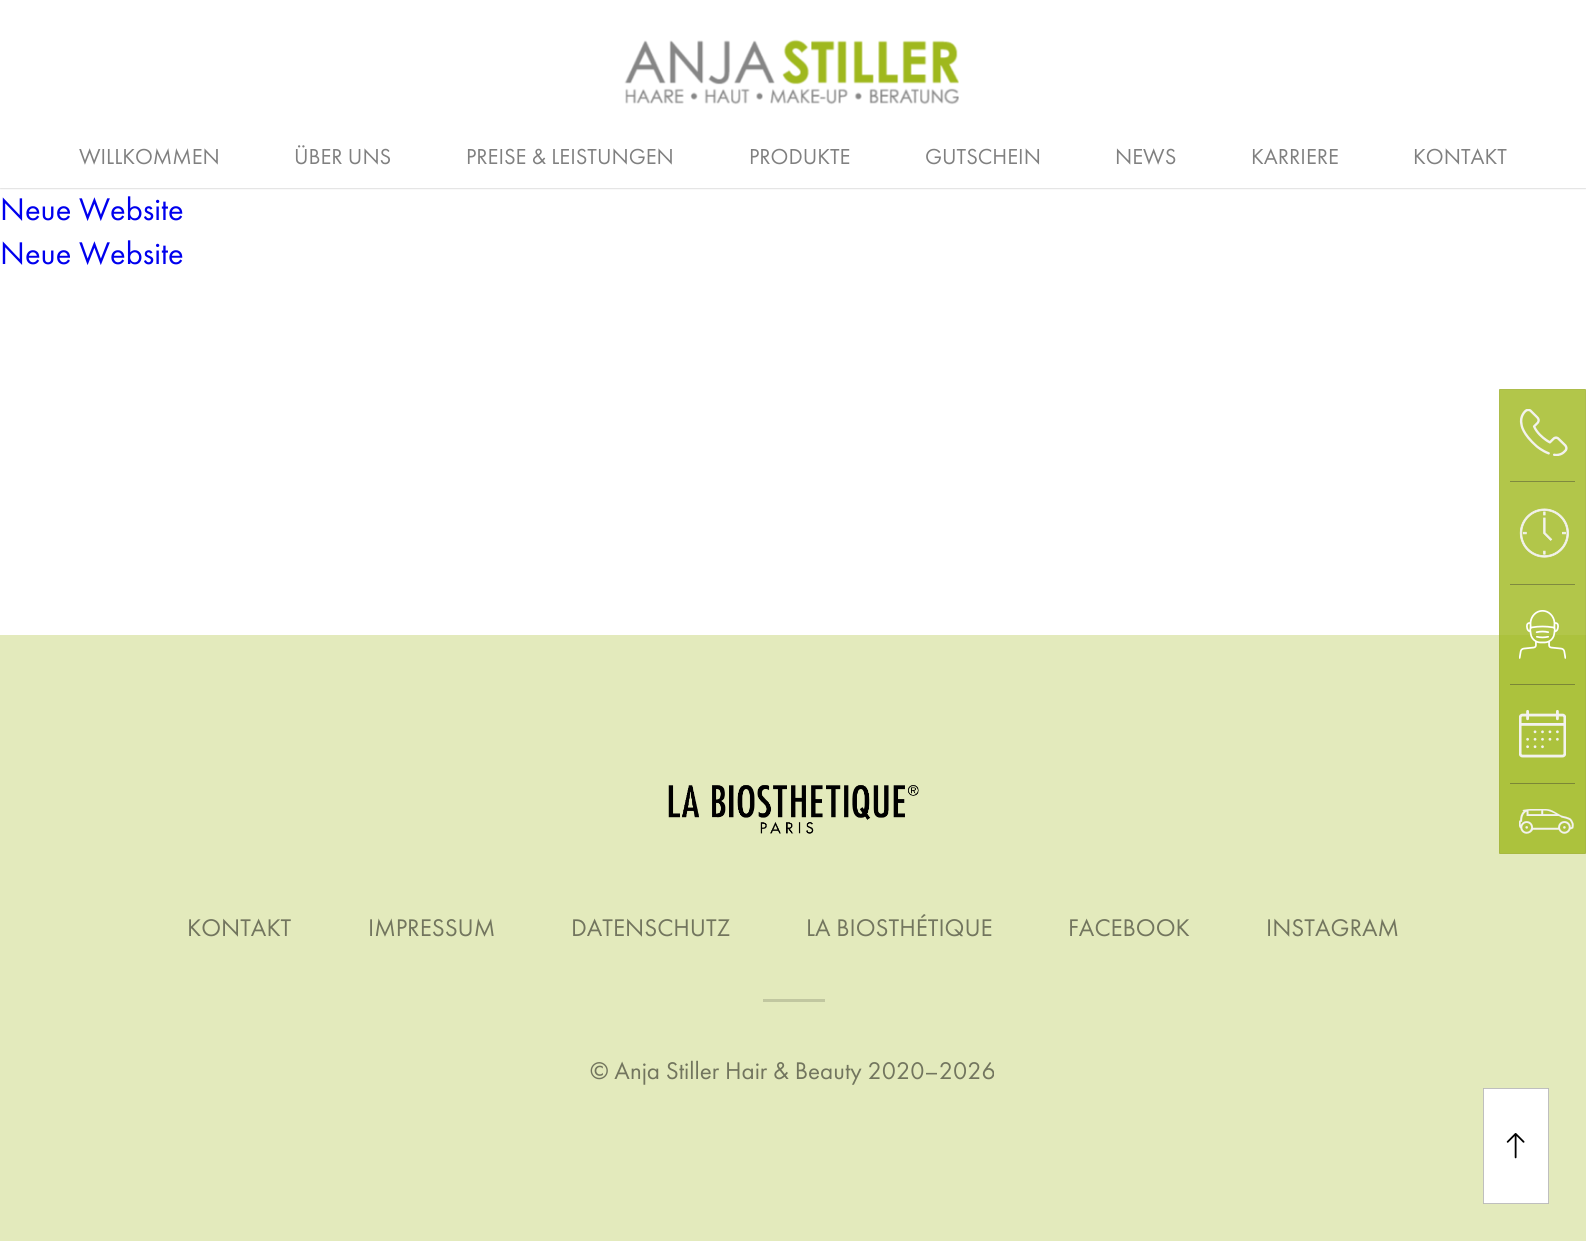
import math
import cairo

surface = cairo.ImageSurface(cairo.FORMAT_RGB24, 1586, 1241)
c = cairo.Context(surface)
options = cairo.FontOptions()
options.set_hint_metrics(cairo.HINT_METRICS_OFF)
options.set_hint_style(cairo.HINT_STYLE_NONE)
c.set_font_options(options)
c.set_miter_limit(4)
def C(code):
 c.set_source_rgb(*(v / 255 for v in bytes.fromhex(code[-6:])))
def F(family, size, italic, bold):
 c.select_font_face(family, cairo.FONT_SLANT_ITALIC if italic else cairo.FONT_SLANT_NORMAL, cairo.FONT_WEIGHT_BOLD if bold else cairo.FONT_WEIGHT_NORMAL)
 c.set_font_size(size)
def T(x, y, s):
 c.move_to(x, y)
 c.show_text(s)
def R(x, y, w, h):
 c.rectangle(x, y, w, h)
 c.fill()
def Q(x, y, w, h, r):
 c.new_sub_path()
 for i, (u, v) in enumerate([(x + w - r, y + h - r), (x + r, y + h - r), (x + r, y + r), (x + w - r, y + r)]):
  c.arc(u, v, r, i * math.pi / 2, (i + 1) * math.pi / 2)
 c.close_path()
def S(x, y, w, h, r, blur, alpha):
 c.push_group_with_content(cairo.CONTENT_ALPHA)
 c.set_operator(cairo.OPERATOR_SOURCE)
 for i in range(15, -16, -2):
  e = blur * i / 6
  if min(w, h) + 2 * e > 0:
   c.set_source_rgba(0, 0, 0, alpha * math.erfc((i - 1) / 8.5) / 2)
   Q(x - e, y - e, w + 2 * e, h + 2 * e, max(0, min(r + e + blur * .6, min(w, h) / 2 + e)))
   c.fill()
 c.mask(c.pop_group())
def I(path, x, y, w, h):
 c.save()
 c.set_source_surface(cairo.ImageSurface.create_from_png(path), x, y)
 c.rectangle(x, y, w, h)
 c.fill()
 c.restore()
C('ffffff')
c.paint()
I('1.png',624,39,335,66)
C('1a1a1a')
S(0,125,1586,63,0,1,.33)
C('ffffff')
R(0,123,1586,65)
F('Futura PT',22.5,0,0)
C('808080')
T(79,164,'WILLKOMMEN')
T(294,164,'ÜBER UNS')
T(466,164,'PREISE & LEISTUNGEN')
T(749,164,'PRODUKTE')
T(925,164,'GUTSCHEIN')
T(1115,164,'NEWS')
T(1251,164,'KARRIERE')
T(1413,164,'KONTAKT')
F('Futura PT',32.5,0,0)
C('0000ee')
T(0,220,'Neue Website')
T(0,264,'Neue Website')
C('e3eabc')
R(0,635,1586,606)
c.set_source_rgba(0.624,0.722,0.114,0.8)
Q(1499,389,87,465,1)
c.fill()
c.rectangle(1499.5,389.5,86,464)
c.set_source_rgba(0.475,0.424,0.38,0.1)
c.set_line_width(1)
c.stroke()
I('2.png',1519,409,49,47)
C('7f8a3f')
R(1510,481,65,1)
I('3.png',1519,508,50,50)
R(1510,584,65,1)
I('4.png',1519,610,47,49)
C('7b8736')
R(1510,684,65,1)
I('5.png',1519,710,47,48)
R(1510,783,65,1)
I('6.png',1519,809,55,25)
I('7.png',668,785,251,49)
F('Futura PT',25,0,0)
C('72755e')
T(187,936,'KONTAKT')
T(368,936,'IMPRESSUM')
T(571,936,'DATENSCHUTZ')
T(806,936,'LA BIOSTHÉTIQUE')
T(1068,936,'FACEBOOK')
T(1266,936,'INSTAGRAM')
C('c1c7a0')
R(763,999,62,3)
C('72755e')
T(590,1079,'© Anja Stiller Hair & Beauty 2020–2026')
C('ffffff')
Q(1483,1088,66,116,1)
c.fill()
c.rectangle(1483.5,1088.5,65,115)
c.set_source_rgba(0,0,0,0.25)
c.stroke()
I('8.png',1506,1133,19,26)
surface.write_to_png('o.png')
